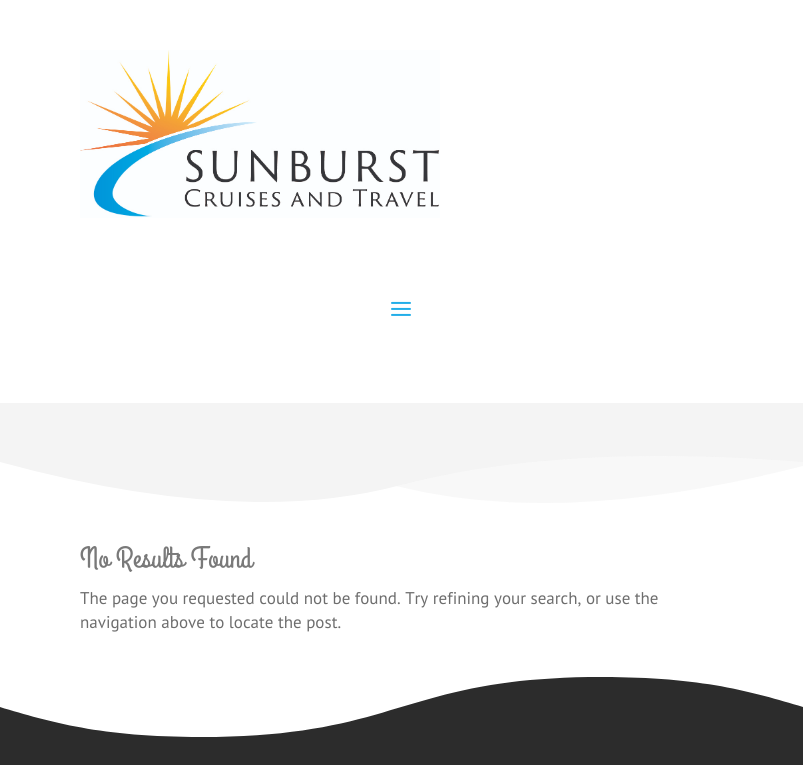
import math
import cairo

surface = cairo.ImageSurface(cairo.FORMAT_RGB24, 803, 765)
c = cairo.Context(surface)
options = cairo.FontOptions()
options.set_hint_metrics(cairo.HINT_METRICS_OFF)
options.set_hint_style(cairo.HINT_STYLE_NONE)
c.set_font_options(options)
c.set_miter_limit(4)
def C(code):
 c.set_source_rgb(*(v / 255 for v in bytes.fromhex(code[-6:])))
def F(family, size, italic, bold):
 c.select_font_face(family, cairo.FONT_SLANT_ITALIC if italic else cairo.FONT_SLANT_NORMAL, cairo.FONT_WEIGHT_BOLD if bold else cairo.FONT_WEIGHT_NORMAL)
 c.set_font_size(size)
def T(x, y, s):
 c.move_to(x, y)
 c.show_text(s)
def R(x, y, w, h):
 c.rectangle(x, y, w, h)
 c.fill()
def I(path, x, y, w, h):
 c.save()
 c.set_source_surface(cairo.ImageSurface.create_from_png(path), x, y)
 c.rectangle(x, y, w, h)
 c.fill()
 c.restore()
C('ffffff')
c.paint()
I('1.png',80,50,360,168)
I('2.png',391,301,20,15)
I('3.png',0,403,803,100)
F('Grand Hotel',30,0,0)
C('797979')
T(80,567,'No Results Found')
F('PT Sans',17,0,0)
C('6d6d6d')
T(80,604,'The page you requested could not be found. Try refining your search, or use the')
T(80,628,'navigation above to locate the post.')
I('4.png',0,677,803,80)
C('2c2c2c')
R(0,757,803,8)
surface.write_to_png('o.png')
